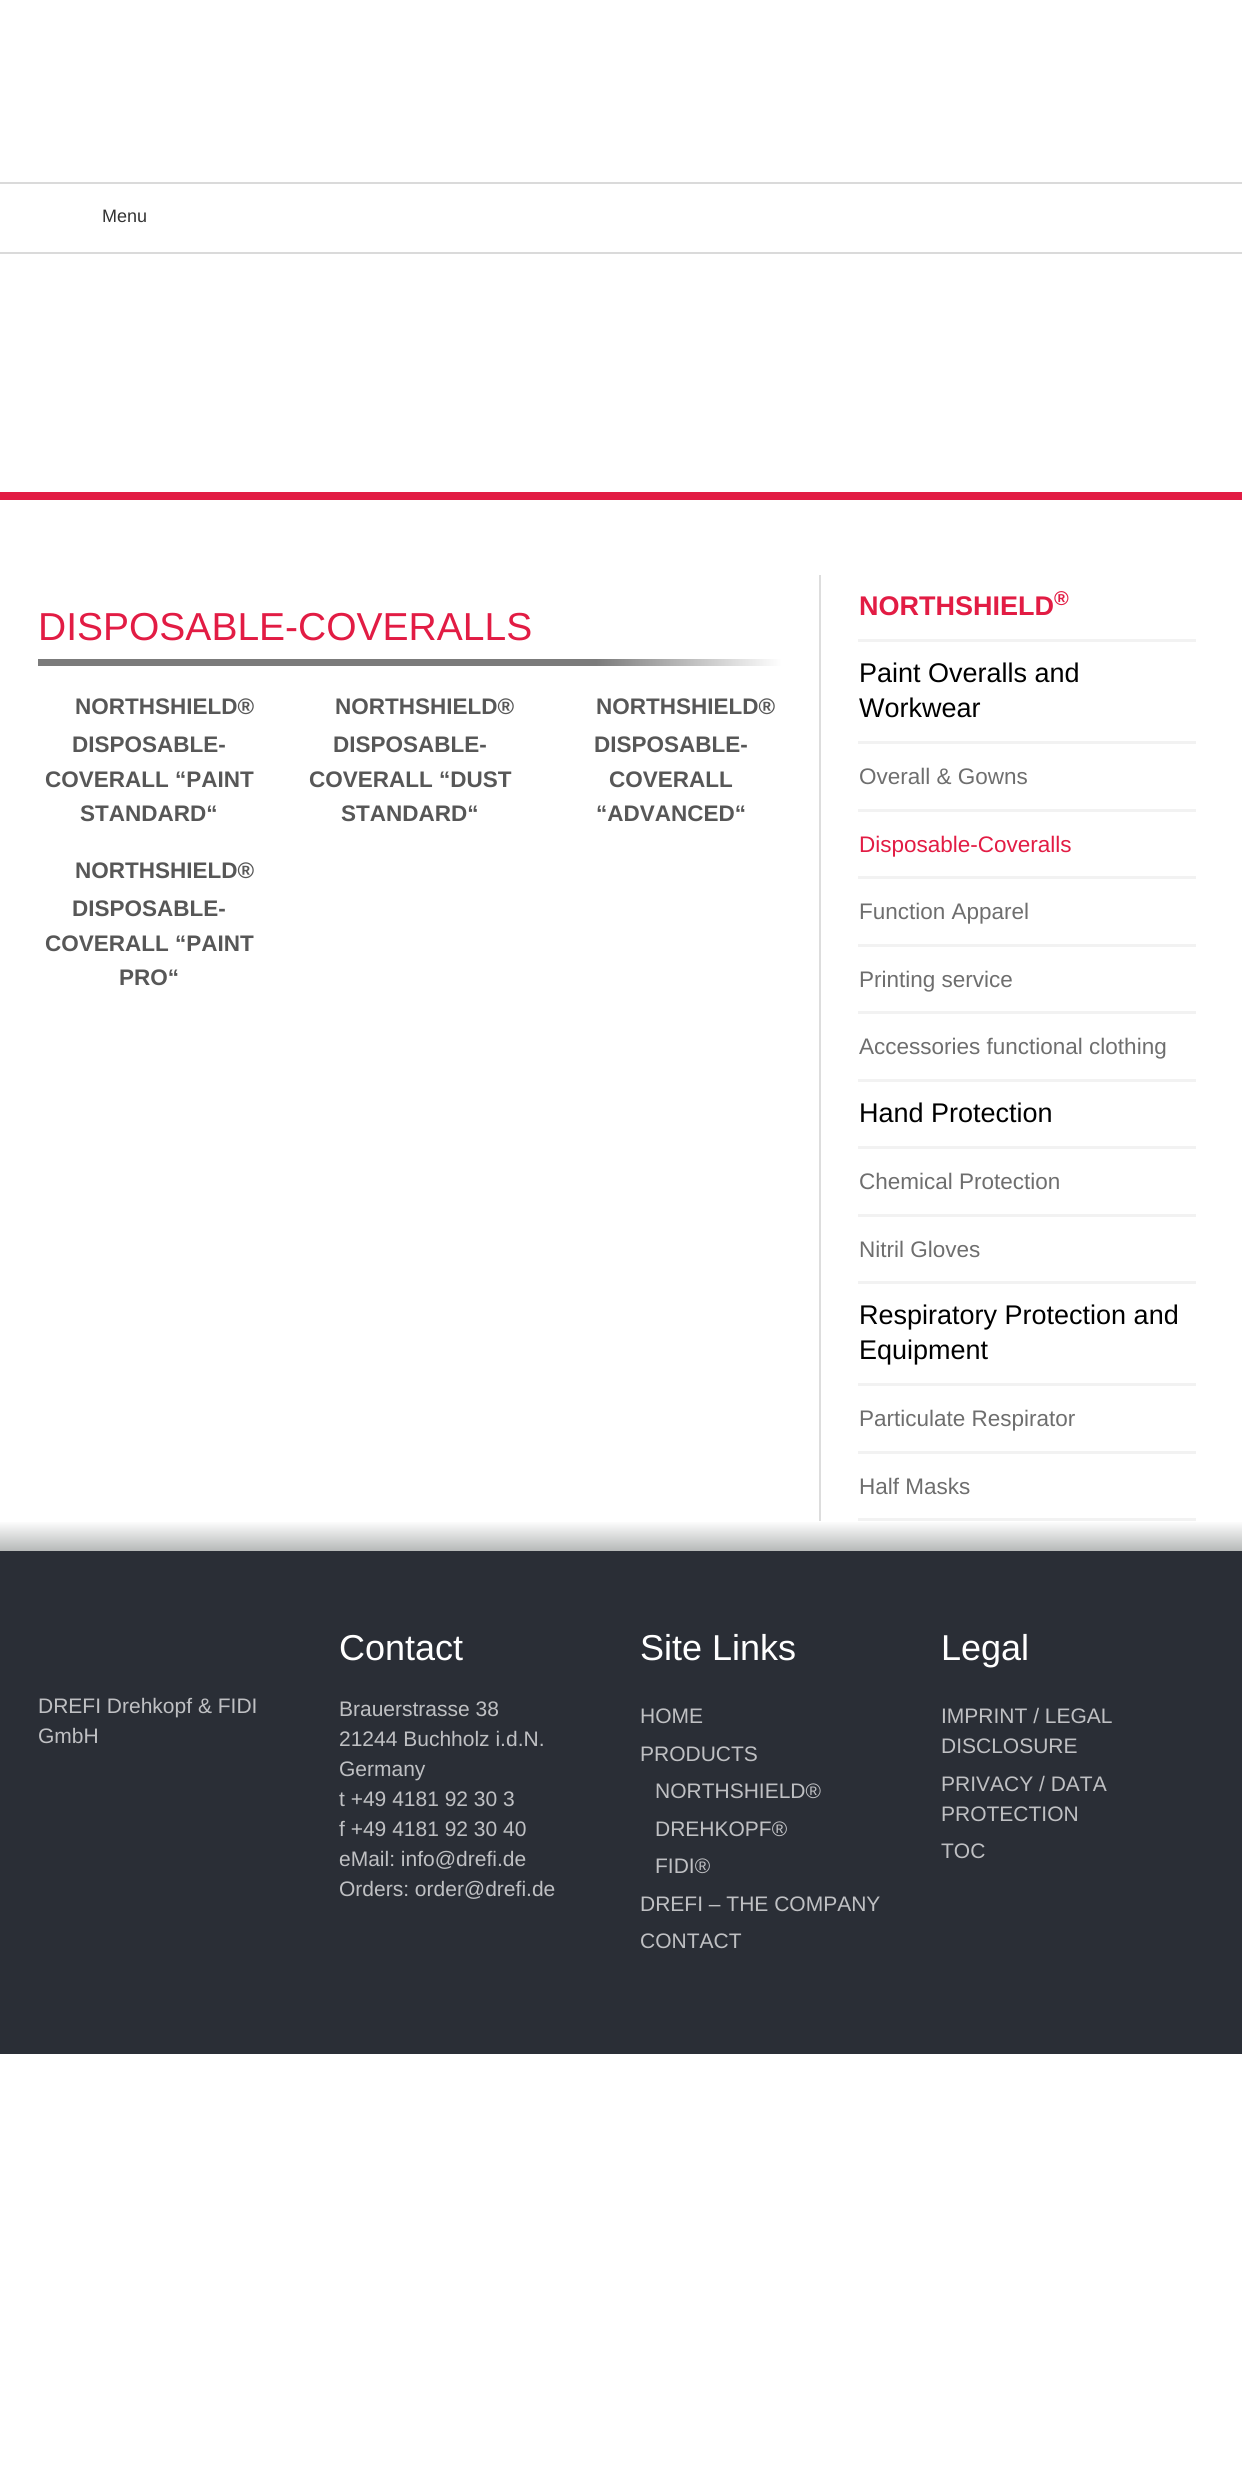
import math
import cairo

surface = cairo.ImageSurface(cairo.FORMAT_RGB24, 1242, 2470)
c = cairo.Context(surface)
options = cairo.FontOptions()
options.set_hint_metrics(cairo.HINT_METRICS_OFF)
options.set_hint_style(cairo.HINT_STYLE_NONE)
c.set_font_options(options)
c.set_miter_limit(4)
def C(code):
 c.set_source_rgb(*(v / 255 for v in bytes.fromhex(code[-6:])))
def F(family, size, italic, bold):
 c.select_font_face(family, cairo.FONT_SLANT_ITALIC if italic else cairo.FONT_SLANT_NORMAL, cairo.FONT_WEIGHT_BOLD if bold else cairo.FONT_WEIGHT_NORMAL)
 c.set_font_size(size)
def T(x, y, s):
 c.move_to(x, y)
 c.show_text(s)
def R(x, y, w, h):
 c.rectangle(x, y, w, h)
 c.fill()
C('ffffff')
c.paint()
C('dadada')
R(0,182,1242,2)
R(0,252,1242,2)
F('Liberation Sans',18,0,0)
C('333333')
T(102,222,'Menu')
C('e21c44')
R(0,492,1242,8)
F('Liberation Sans',39,0,0)
T(38,640,'DISPOSABLE-COVERALLS')
gradient = cairo.LinearGradient(38,662,782,662)
gradient.add_color_stop_rgba(0,0.482,0.482,0.482,1)
gradient.add_color_stop_rgba(.75,0.482,0.482,0.482,1)
gradient.add_color_stop_rgba(1,1,1,1,1)
c.set_source(gradient)
R(38,659,744,7)
F('Liberation Sans',22.5,0,1)
C('575757')
T(75,714,'NORTHSHIELD®')
T(72,752,'DISPOSABLE-')
T(45,787,'COVERALL “PAINT')
T(80,821,'STANDARD“')
T(335,714,'NORTHSHIELD®')
T(333,752,'DISPOSABLE-')
T(309,787,'COVERALL “DUST')
T(341,821,'STANDARD“')
T(596,714,'NORTHSHIELD®')
T(594,752,'DISPOSABLE-')
T(609,787,'COVERALL')
T(596,821,'“ADVANCED“')
T(75,878,'NORTHSHIELD®')
T(72,916,'DISPOSABLE-')
T(45,951,'COVERALL “PAINT')
T(119,985,'PRO“')
C('dddddd')
R(819,575,2,946)
C('f2f2f2')
R(858,639,338,3)
F('Liberation Sans',27,0,1)
C('e21c44')
T(859,615,'NORTHSHIELD')
F('Liberation Sans',20,0,1)
T(1054,605,'®')
C('f2f2f2')
R(858,741,338,3)
F('Liberation Sans',27,0,0)
C('000000')
T(859,682,'Paint Overalls and')
T(859,717,'Workwear')
C('f2f2f2')
R(858,809,338,3)
F('Liberation Sans',22.5,0,0)
C('6e6e6e')
T(859,784,'Overall & Gowns')
C('f2f2f2')
R(858,876,338,3)
C('e21c44')
T(859,852,'Disposable-Coveralls')
C('f2f2f2')
R(858,944,338,3)
C('6e6e6e')
T(859,919,'Function Apparel')
C('f2f2f2')
R(858,1011,338,3)
C('6e6e6e')
T(859,987,'Printing service')
C('f2f2f2')
R(858,1079,338,3)
C('6e6e6e')
T(859,1054,'Accessories functional clothing')
C('f2f2f2')
R(858,1146,338,3)
F('Liberation Sans',27,0,0)
C('000000')
T(859,1122,'Hand Protection')
C('f2f2f2')
R(858,1214,338,3)
F('Liberation Sans',22.5,0,0)
C('6e6e6e')
T(859,1189,'Chemical Protection')
C('f2f2f2')
R(858,1281,338,3)
C('6e6e6e')
T(859,1257,'Nitril Gloves')
C('f2f2f2')
R(858,1383,338,3)
F('Liberation Sans',27,0,0)
C('000000')
T(859,1324,'Respiratory Protection and')
T(859,1359,'Equipment')
C('f2f2f2')
R(858,1451,338,3)
F('Liberation Sans',22.5,0,0)
C('6e6e6e')
T(859,1426,'Particulate Respirator')
C('f2f2f2')
R(858,1518,338,3)
C('6e6e6e')
T(859,1494,'Half Masks')
gradient = cairo.LinearGradient(621,1521,621,1551)
gradient.add_color_stop_rgba(0,1,1,1,1)
gradient.add_color_stop_rgba(1,0.714,0.725,0.722,1)
c.set_source(gradient)
R(0,1522,1242,29)
C('2a2e36')
R(0,1551,1242,503)
F('Liberation Sans',21,0,0)
C('bfc0c3')
T(38,1713,'DREFI Drehkopf & FIDI')
T(38,1743,'GmbH')
F('Liberation Sans',36,0,0)
C('ffffff')
T(339,1660,'Contact')
F('Liberation Sans',21,0,0)
C('bfc0c3')
T(339,1716,'Brauerstrasse 38')
T(339,1746,'21244 Buchholz i.d.N.')
T(339,1776,'Germany')
T(339,1806,'t +49 4181 92 30 3')
T(339,1836,'f +49 4181 92 30 40')
T(339,1866,'eMail: info@drefi.de')
T(339,1896,'Orders: order@drefi.de')
F('Liberation Sans',36,0,0)
C('ffffff')
T(640,1660,'Site Links')
F('Liberation Sans',21,0,0)
C('bfc0c3')
T(640,1723,'HOME')
T(640,1761,'PRODUCTS')
T(655,1798,'NORTHSHIELD®')
T(655,1836,'DREHKOPF®')
T(655,1873,'FIDI®')
T(640,1911,'DREFI – THE COMPANY')
T(640,1948,'CONTACT')
F('Liberation Sans',36,0,0)
C('ffffff')
T(941,1660,'Legal')
F('Liberation Sans',21,0,0)
C('bfc0c3')
T(941,1723,'IMPRINT / LEGAL')
T(941,1753,'DISCLOSURE')
T(941,1791,'PRIVACY / DATA')
T(941,1821,'PROTECTION')
T(941,1858,'TOC')
surface.write_to_png('o.png')
